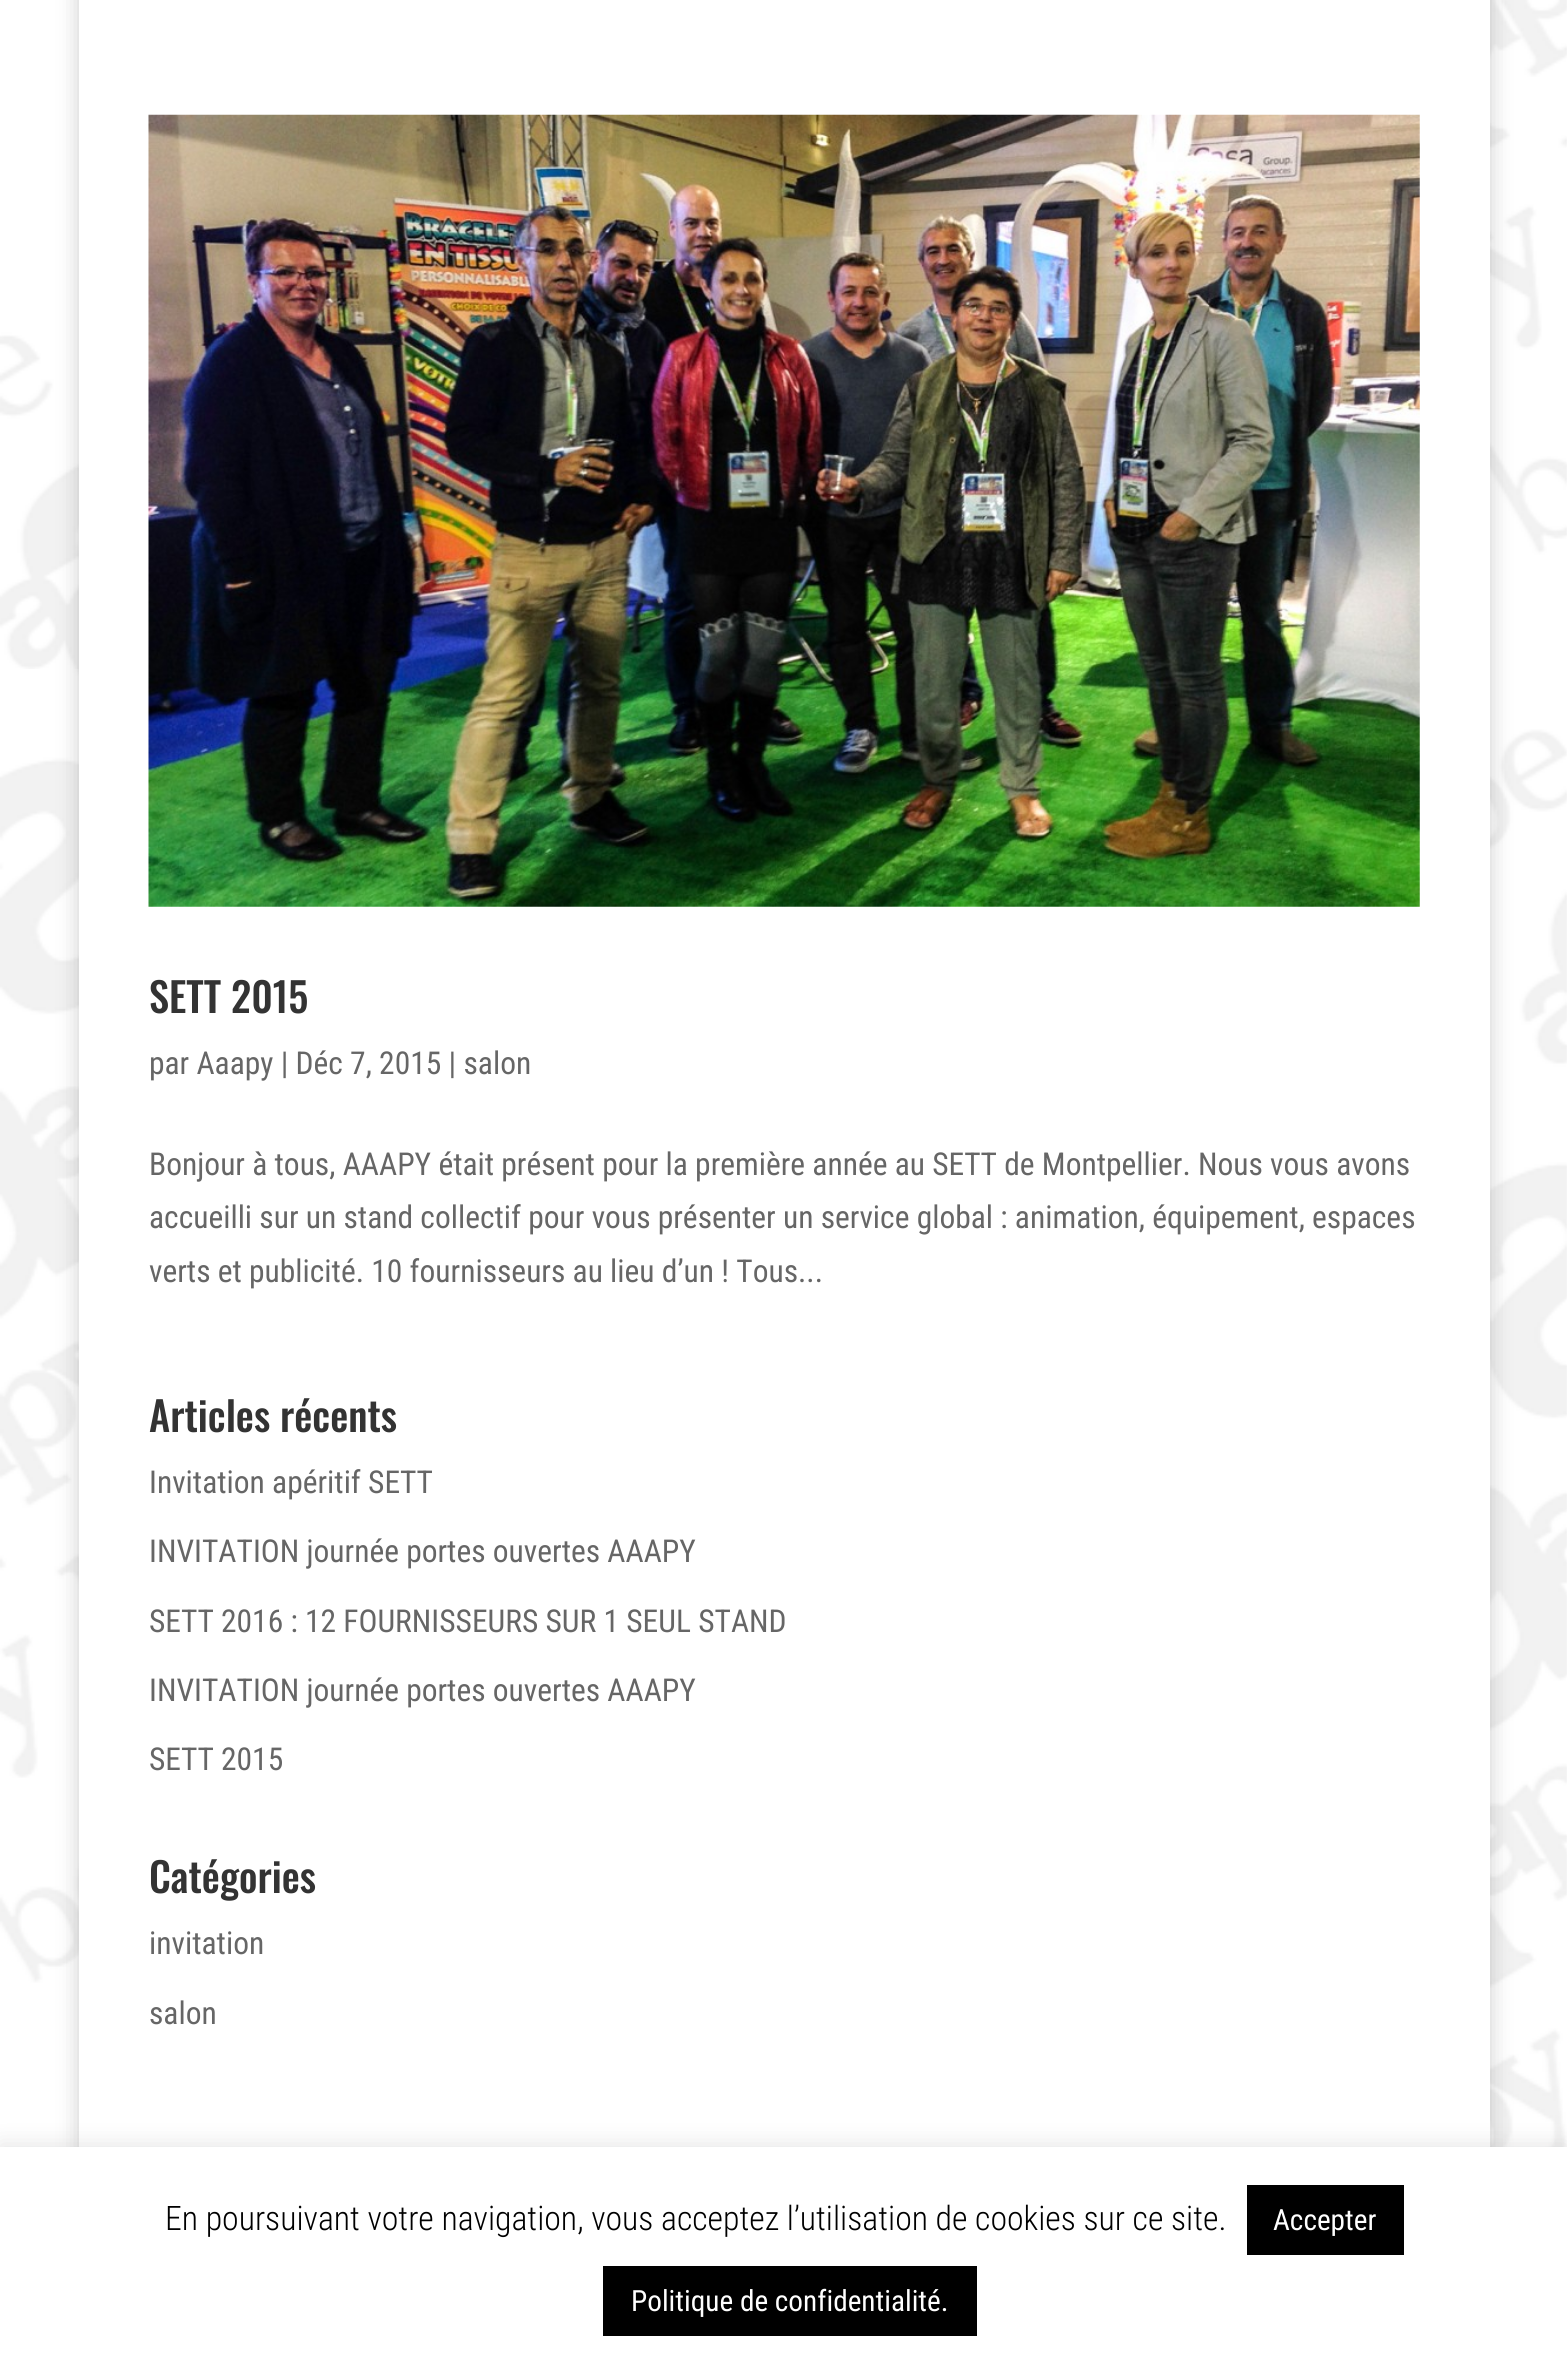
import math
import cairo

surface = cairo.ImageSurface(cairo.FORMAT_RGB24, 1567, 2361)
c = cairo.Context(surface)
options = cairo.FontOptions()
options.set_hint_metrics(cairo.HINT_METRICS_OFF)
options.set_hint_style(cairo.HINT_STYLE_NONE)
c.set_font_options(options)
c.set_miter_limit(4)
def C(code):
 c.set_source_rgb(*(v / 255 for v in bytes.fromhex(code[-6:])))
def F(family, size, italic, bold):
 c.select_font_face(family, cairo.FONT_SLANT_ITALIC if italic else cairo.FONT_SLANT_NORMAL, cairo.FONT_WEIGHT_BOLD if bold else cairo.FONT_WEIGHT_NORMAL)
 c.set_font_size(size)
def T(x, y, s):
 c.move_to(x, y)
 c.show_text(s)
def R(x, y, w, h):
 c.rectangle(x, y, w, h)
 c.fill()
def Q(x, y, w, h, r):
 c.new_sub_path()
 for i, (u, v) in enumerate([(x + w - r, y + h - r), (x + r, y + h - r), (x + r, y + r), (x + w - r, y + r)]):
  c.arc(u, v, r, i * math.pi / 2, (i + 1) * math.pi / 2)
 c.close_path()
def S(x, y, w, h, r, blur, alpha):
 c.push_group_with_content(cairo.CONTENT_ALPHA)
 c.set_operator(cairo.OPERATOR_SOURCE)
 for i in range(15, -16, -2):
  e = blur * i / 6
  if min(w, h) + 2 * e > 0:
   c.set_source_rgba(0, 0, 0, alpha * math.erfc((i - 1) / 8.5) / 2)
   Q(x - e, y - e, w + 2 * e, h + 2 * e, max(0, min(r + e + blur * .6, min(w, h) / 2 + e)))
   c.fill()
 c.mask(c.pop_group())
def I(path, x, y, w, h):
 c.save()
 c.set_source_surface(cairo.ImageSurface.create_from_png(path), x, y)
 c.rectangle(x, y, w, h)
 c.fill()
 c.restore()
C('ffffff')
c.paint()
I('1.png',0,0,1567,2147)
C('000000')
S(79,-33,1411,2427,0,11,.2)
C('ffffff')
R(79,0,1411,2147)
I('2.png',148,114,1272,793)
F('Oswald Medium',40.5,0,0)
C('333333')
T(149,1013,'SETT 2015')
F('Roboto Condensed',31.5,0,0)
C('666666')
T(149,1074,'par Aaapy | Déc 7, 2015 | salon')
T(149,1175,'Bonjour à tous, AAAPY était présent pour la première année au SETT de Montpellier. Nous vous avons')
T(149,1228,'accueilli sur un stand collectif pour vous présenter un service global : animation, équipement, espaces')
T(149,1282,'verts et publicité. 10 fournisseurs au lieu d’un ! Tous...')
F('Oswald Medium',40.5,0,0)
C('333333')
T(149,1432,'Articles récents')
F('Roboto Condensed',31.5,0,0)
C('666666')
T(149,1493,'Invitation apéritif SETT')
T(149,1562,'INVITATION journée portes ouvertes AAAPY')
T(149,1632,'SETT 2016 : 12 FOURNISSEURS SUR 1 SEUL STAND')
T(149,1701,'INVITATION journée portes ouvertes AAAPY')
T(149,1770,'SETT 2015')
F('Oswald Medium',40.5,0,0)
C('333333')
T(149,1893,'Catégories')
F('Roboto Condensed',31.5,0,0)
C('666666')
T(149,1954,'invitation')
T(149,2024,'salon')
C('acabab')
S(0,2144,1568,216,0,11,.3)
C('ffffff')
R(0,2147,1567,214)
F('Roboto Condensed Light',33.75,0,0)
C('000000')
T(165,2230,'En poursuivant votre navigation, vous acceptez l’utilisation de cookies sur ce site.')
R(1247,2185,157,70)
F('Roboto Condensed',29.25,0,0)
C('ffffff')
T(1273,2230,'Accepter')
C('000000')
R(603,2266,374,70)
C('ffffff')
T(631,2311,'Politique de confidentialité.')
surface.write_to_png('o.png')
